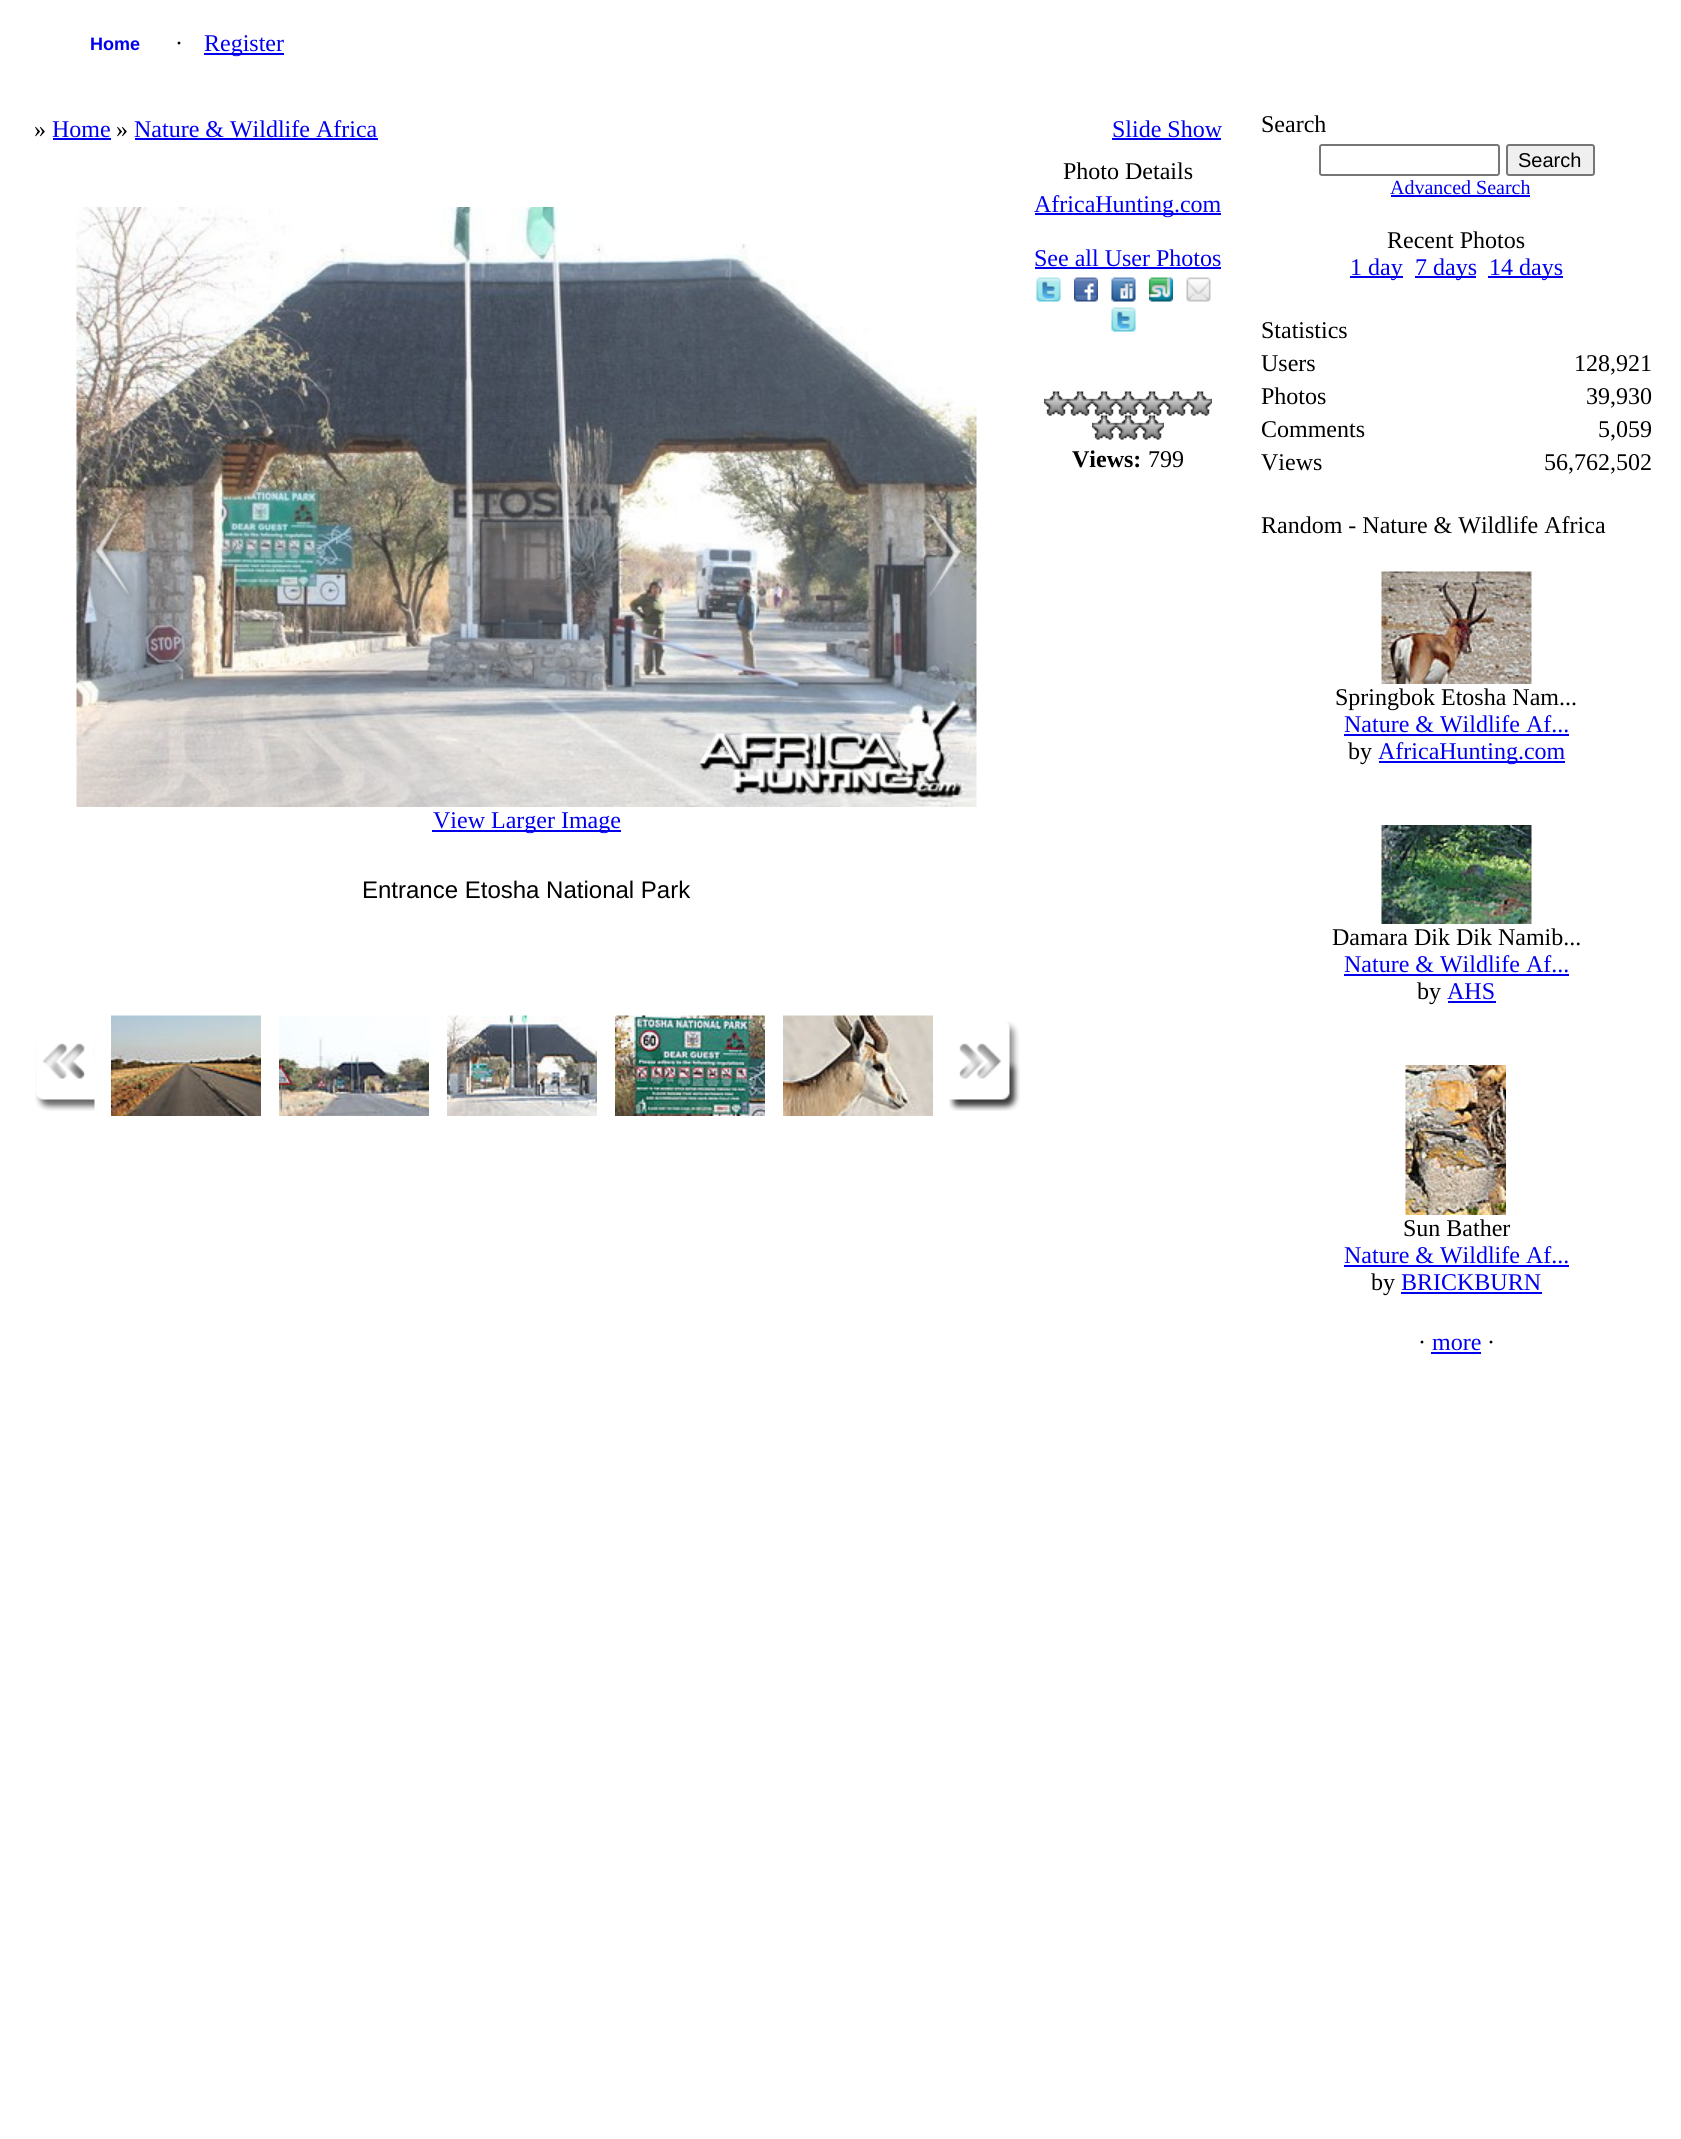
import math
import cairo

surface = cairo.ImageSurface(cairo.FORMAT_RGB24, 1681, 2139)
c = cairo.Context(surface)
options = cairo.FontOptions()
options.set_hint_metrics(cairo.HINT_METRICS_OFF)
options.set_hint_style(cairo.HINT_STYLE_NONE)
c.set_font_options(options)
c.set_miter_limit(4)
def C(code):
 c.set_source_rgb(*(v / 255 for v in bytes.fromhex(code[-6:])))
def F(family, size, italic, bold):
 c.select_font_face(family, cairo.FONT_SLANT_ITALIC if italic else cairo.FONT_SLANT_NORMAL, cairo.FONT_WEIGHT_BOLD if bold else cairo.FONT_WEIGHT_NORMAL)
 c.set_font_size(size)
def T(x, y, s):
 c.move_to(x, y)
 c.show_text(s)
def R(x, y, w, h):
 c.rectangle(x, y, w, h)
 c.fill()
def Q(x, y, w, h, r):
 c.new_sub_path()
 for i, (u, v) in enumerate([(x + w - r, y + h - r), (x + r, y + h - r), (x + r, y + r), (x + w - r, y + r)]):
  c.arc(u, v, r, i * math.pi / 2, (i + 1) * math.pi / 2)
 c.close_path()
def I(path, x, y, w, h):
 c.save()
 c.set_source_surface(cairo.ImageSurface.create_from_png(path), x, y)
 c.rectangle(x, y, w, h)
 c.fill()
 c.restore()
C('ffffff')
c.paint()
F('Liberation Sans',18,0,1)
C('0000ee')
T(90,50,'Home')
F('Liberation Serif',24,0,0)
C('000000')
T(175,51,'·')
C('0000ee')
R(204,53,80,2)
T(204,51,'Register')
C('000000')
T(34,137,'»')
C('0000ee')
T(52,137,'Home')
R(53,138,58,2)
C('000000')
T(116,137,'»')
C('0000ee')
T(134,137,'Nature & Wildlife Africa')
R(135,138,243,2)
T(1112,137,'Slide Show')
R(1112,138,109,2)
C('000000')
T(1063,179,'Photo Details')
C('0000ee')
R(1035,213,186,2)
T(1034,212,'AfricaHunting.com')
T(1034,266,'See all User Photos')
R(1035,267,186,2)
I('1.png',1036,277,25,25)
I('2.png',1074,277,24,25)
I('3.png',1111,277,25,25)
I('4.png',1149,277,24,25)
I('5.png',1186,277,25,25)
I('1.png',1111,307,25,25)
I('6.png',1044,391,24,25)
I('6.png',1068,391,24,25)
I('6.png',1092,391,24,25)
I('6.png',1116,391,24,25)
I('6.png',1140,391,24,25)
I('6.png',1164,391,24,25)
I('6.png',1188,391,24,25)
I('7.png',1092,415,24,25)
I('7.png',1116,415,24,25)
I('7.png',1140,415,24,25)
F('Liberation Serif',24,0,1)
C('000000')
T(1072,467,'Views:')
F('Liberation Serif',24,0,0)
T(1148,467,'799')
I('8.png',76,207,901,600)
I('9.png',95,507,38,91)
I('10.png',923,507,38,89)
C('0000ee')
R(432,830,189,2)
T(433,828,'View Larger Image')
F('Liberation Sans',24,0,0)
C('000000')
T(362,898,'Entrance Etosha National Park')
I('11.png',35,1043,60,68)
I('12.png',111,1015,150,101)
I('13.png',279,1015,150,101)
I('14.png',447,1015,150,101)
I('15.png',615,1015,150,101)
I('16.png',783,1015,150,101)
I('17.png',949,1021,71,90)
F('Liberation Serif',24,0,0)
T(1261,132,'Search')
Q(1320,145,179,30,2)
C('767676')
c.stroke()
C('efefef')
Q(1507,145,87,30,2)
c.fill_preserve()
C('767676')
c.stroke()
F('Liberation Sans',20,0,0)
C('000000')
T(1518,167,'Search')
F('Liberation Serif',20,0,0)
C('0000ee')
T(1390,194,'Advanced Search')
R(1391,195,139,2)
F('Liberation Serif',24,0,0)
C('000000')
T(1387,248,'Recent Photos')
C('0000ee')
R(1350,276,53,2)
T(1350,275,'1 day')
R(1415,276,61,2)
T(1415,275,'7 days')
R(1488,276,75,2)
T(1489,275,'14 days')
C('000000')
T(1261,338,'Statistics')
T(1261,371,'Users')
T(1574,371,'128,921')
T(1261,404,'Photos')
T(1586,404,'39,930')
T(1261,437,'Comments')
T(1598,437,'5,059')
T(1261,470,'Views')
T(1544,470,'56,762,502')
T(1261,533,'Random - Nature & Wildlife Africa')
I('18.png',1381,571,151,113)
T(1335,705,'Springbok Etosha Nam...')
C('0000ee')
T(1344,732,'Nature & Wildlife Af...')
R(1344,734,225,2)
C('000000')
T(1348,759,'by')
C('0000ee')
R(1379,761,186,2)
T(1378,759,'AfricaHunting.com')
I('19.png',1381,825,151,99)
C('000000')
T(1332,945,'Damara Dik Dik Namib...')
C('0000ee')
T(1344,972,'Nature & Wildlife Af...')
R(1344,974,225,2)
C('000000')
T(1417,999,'by')
C('0000ee')
T(1447,999,'AHS')
R(1448,1001,48,2)
I('20.png',1405,1065,101,150)
C('000000')
T(1403,1236,'Sun Bather')
C('0000ee')
T(1344,1263,'Nature & Wildlife Af...')
R(1344,1265,225,2)
C('000000')
T(1371,1290,'by')
C('0000ee')
T(1401,1290,'BRICKBURN')
R(1401,1292,141,2)
C('000000')
T(1418,1350,'·')
C('0000ee')
T(1432,1350,'more')
R(1431,1352,50,2)
C('000000')
T(1487,1350,'·')
surface.write_to_png('o.png')
